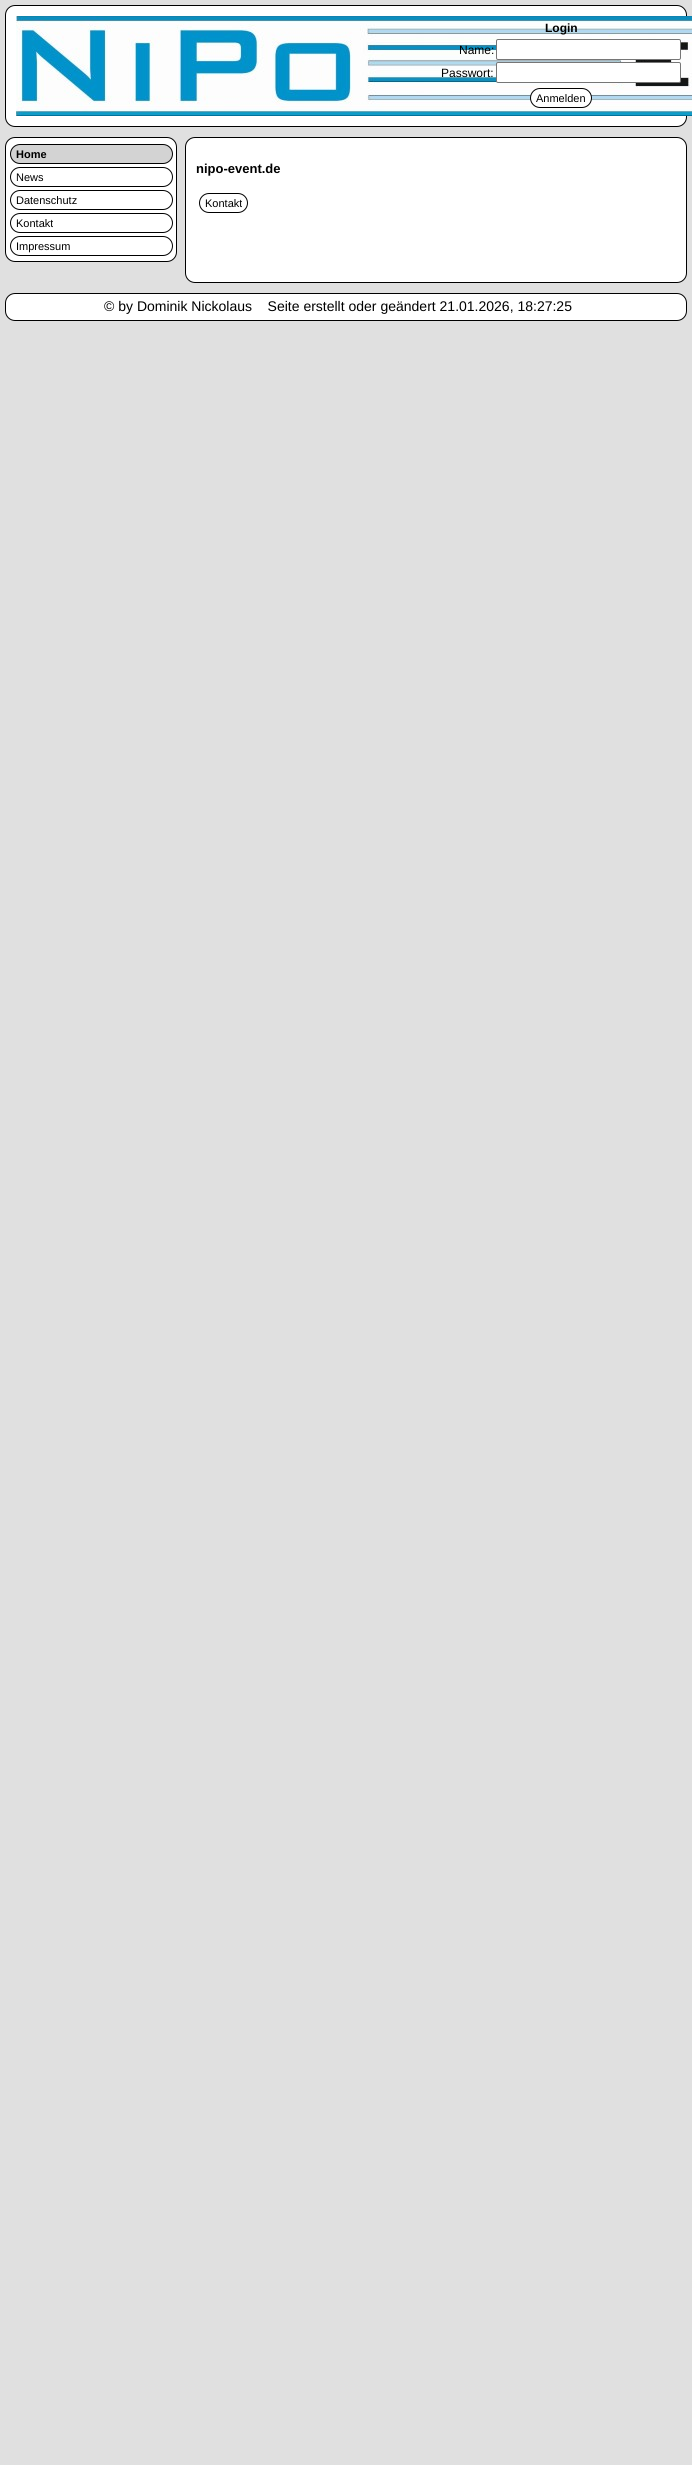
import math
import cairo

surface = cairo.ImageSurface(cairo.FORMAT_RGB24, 692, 2465)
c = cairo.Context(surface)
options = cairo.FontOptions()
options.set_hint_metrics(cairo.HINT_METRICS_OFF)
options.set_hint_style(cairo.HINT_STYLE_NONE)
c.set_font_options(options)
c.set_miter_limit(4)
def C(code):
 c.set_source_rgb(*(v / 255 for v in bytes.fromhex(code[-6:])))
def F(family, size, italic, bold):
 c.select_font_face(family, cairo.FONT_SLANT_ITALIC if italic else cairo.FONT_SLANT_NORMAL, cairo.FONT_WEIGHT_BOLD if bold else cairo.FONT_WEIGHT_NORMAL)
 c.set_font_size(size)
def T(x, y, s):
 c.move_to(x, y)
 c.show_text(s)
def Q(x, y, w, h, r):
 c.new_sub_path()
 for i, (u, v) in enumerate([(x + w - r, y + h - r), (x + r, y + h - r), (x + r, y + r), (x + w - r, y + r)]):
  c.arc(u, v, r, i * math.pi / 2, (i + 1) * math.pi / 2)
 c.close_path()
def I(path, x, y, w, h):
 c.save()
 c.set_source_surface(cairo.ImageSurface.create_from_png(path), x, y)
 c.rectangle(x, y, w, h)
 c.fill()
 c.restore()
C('e0e0e0')
c.paint()
C('ffffff')
Q(5.5,5.5,681,121,9.5)
c.fill_preserve()
C('000000')
c.set_line_width(1)
c.stroke()
I('1.png',16,16,676,100)
F('Liberation Sans',12,0,1)
T(545,32,'Login')
F('Liberation Sans',12,0,0)
T(459,54,'Name:')
C('ffffff')
Q(496.5,39.5,184,20,1.5)
c.fill_preserve()
C('767676')
c.stroke()
C('000000')
T(441,77,'Passwort:')
C('ffffff')
Q(496.5,62.5,184,20,1.5)
c.fill_preserve()
C('767676')
c.stroke()
C('ffffff')
Q(530.5,88.5,61,19,9.5)
c.fill_preserve()
C('000000')
c.stroke()
F('Liberation Sans',11,0,0)
T(536,102,'Anmelden')
C('ffffff')
Q(5.5,137.5,171,124,9.5)
c.fill_preserve()
C('000000')
c.stroke()
C('d3d3d3')
Q(10.5,144.5,162,19,9.5)
c.fill_preserve()
C('000000')
c.stroke()
F('Liberation Sans',11,0,1)
T(16,158,'Home')
Q(10.5,167.5,162,19,9.5)
c.stroke()
F('Liberation Sans',11,0,0)
T(16,181,'News')
Q(10.5,190.5,162,19,9.5)
c.stroke()
T(16,204,'Datenschutz')
Q(10.5,213.5,162,19,9.5)
c.stroke()
T(16,227,'Kontakt')
Q(10.5,236.5,162,19,9.5)
c.stroke()
T(16,250,'Impressum')
C('ffffff')
Q(185.5,137.5,501,145,9.5)
c.fill_preserve()
C('000000')
c.stroke()
F('Liberation Sans',13,0,1)
T(196,173,'nipo-event.de')
Q(199.5,193.5,48,19,9.5)
c.stroke()
F('Liberation Sans',11,0,0)
T(205,207,'Kontakt')
C('ffffff')
Q(5.5,293.5,681,27,9.5)
c.fill_preserve()
C('000000')
c.stroke()
F('Liberation Sans',14,0,0)
T(104,311,'© by Dominik Nickolaus    Seite erstellt oder geändert 21.01.2026, 18:27:25')
surface.write_to_png('o.png')
